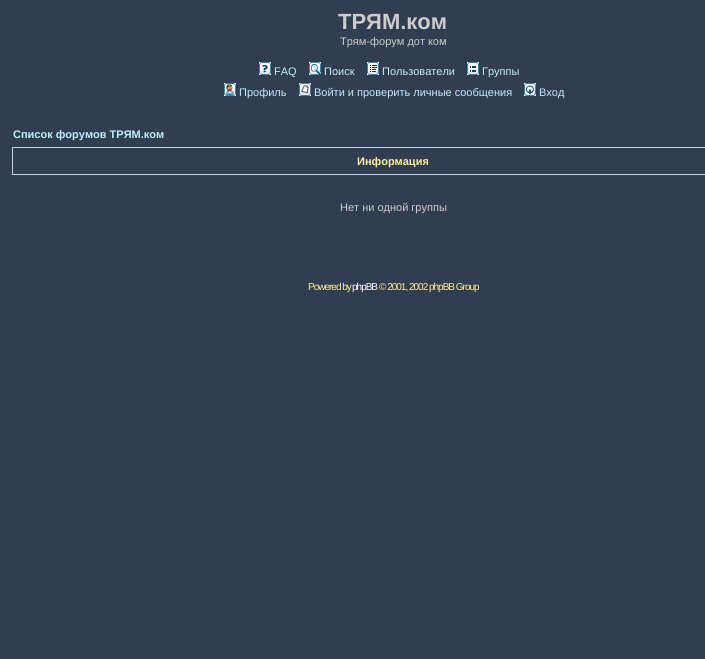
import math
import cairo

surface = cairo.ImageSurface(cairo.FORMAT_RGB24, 705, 659)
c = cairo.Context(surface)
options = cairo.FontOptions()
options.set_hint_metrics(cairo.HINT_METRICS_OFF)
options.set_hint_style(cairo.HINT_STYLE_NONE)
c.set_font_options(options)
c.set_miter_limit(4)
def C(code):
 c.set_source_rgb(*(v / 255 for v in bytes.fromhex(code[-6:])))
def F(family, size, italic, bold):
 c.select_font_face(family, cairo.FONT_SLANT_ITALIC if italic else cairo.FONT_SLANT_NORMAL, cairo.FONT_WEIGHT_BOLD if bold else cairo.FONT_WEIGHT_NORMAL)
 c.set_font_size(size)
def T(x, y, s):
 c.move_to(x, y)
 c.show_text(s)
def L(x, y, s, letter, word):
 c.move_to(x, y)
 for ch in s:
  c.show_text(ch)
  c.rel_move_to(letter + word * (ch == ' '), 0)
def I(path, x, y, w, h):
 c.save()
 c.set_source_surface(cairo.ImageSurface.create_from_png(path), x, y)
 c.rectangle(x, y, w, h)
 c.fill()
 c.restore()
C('313e51')
c.paint()
F('Liberation Sans',22,0,1)
C('cccccc')
T(338,29,'ТРЯМ.ком')
F('Liberation Sans',11,0,0)
T(340,45,'Трям-форум дот ком')
I('1.png',259,62,12,13)
C('bfedff')
T(274,75,'FAQ')
I('2.png',309,62,12,13)
T(324,75,'Поиск')
I('3.png',367,62,12,13)
T(382,75,'Пользователи')
I('4.png',467,62,12,13)
T(482,75,'Группы')
I('5.png',224,83,12,13)
T(239,96,'Профиль')
I('6.png',299,83,12,13)
T(314,96,'Войти и проверить личные сообщения')
I('7.png',524,83,12,13)
T(539,96,'Вход')
F('Liberation Sans',11,0,1)
T(13,138,'Список форумов ТРЯМ.ком')
c.rectangle(12.5,147.5,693,27)
C('ccccdd')
c.set_line_width(1)
c.stroke()
C('ffee99')
T(357,165,'Информация')
F('Liberation Sans',11,0,0)
C('cccccc')
T(340,211,'Нет ни одной группы')
F('Liberation Sans',10,0,0)
C('ffee99')
L(308,290,'Powered by',-1,0)
C('ffffff')
L(352,290,'phpBB',-1,0)
C('ffee99')
L(379,290,'© 2001, 2002 phpBB Group',-1,0)
surface.write_to_png('o.png')
